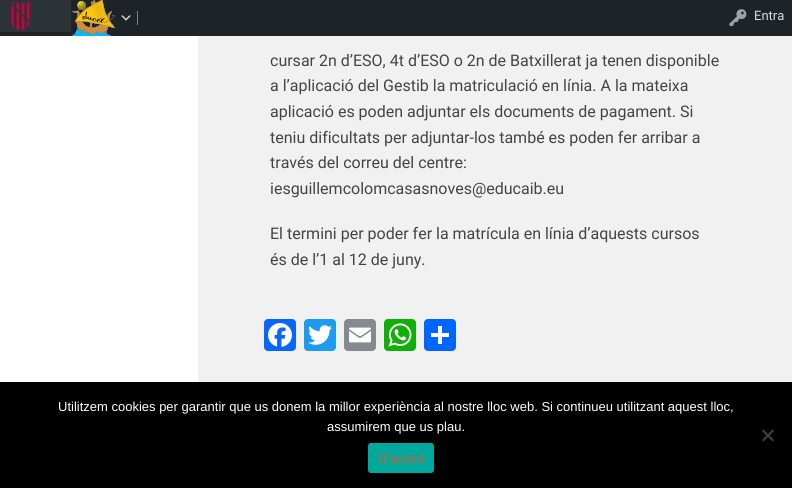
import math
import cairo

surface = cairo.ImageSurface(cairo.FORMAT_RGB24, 792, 488)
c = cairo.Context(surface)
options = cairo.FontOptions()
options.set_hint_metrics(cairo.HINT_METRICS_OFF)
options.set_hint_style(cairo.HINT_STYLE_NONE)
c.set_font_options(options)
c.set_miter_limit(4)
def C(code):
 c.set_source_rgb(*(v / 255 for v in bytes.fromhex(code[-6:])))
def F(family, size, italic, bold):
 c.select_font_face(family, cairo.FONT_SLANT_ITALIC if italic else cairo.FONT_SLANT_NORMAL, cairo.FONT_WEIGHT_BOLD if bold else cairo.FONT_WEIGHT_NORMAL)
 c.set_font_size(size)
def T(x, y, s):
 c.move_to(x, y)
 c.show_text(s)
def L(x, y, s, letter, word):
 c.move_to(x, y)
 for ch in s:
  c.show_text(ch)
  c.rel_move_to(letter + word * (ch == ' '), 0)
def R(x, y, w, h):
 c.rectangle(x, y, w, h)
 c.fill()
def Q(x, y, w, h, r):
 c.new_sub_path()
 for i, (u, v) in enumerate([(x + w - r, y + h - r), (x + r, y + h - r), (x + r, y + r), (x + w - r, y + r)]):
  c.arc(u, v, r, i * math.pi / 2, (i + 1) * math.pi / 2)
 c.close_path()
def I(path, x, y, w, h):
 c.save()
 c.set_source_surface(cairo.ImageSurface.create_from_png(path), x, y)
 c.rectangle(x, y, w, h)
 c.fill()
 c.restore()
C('ffffff')
c.paint()
C('1d2327')
R(0,0,792,36)
C('2c3338')
R(0,0,71,32)
I('1.png',10,2,21,29)
I('2.png',72,0,43,36)
C('808080')
R(137,11,1,14)
I('3.png',121,15,10,6)
I('4.png',729,9,18,17)
F('Roboto',13,0,0)
C('dddddd')
T(754,20,'Entra')
C('f1f1f1')
R(198,36,594,346)
F('Roboto',16,0,0)
C('444444')
T(270,66,'cursar 2n d’ESO, 4t d’ESO o 2n de Batxillerat ja tenen disponible')
T(270,91,'a l’aplicació del Gestib la matriculació en línia. A la mateixa')
T(270,117,'aplicació es poden adjuntar els documents de pagament. Si')
T(270,143,'teniu dificultats per adjuntar-los també es poden fer arribar a')
T(270,168,'través del correu del centre:')
T(270,194,'iesguillemcolomcasasnoves@educaib.eu')
T(270,239,'El termini per poder fer la matrícula en línia d’aquests cursos')
T(270,265,'és de l’1 al 12 de juny.')
C('0866ff')
Q(264,319,32,32,4)
c.fill()
I('5.png',268,323,24,24)
C('1d9bf0')
Q(304,319,32,32,4)
c.fill()
I('6.png',308,325,24,20)
C('888990')
Q(344,319,32,32,4)
c.fill()
I('7.png',349,327,22,16)
C('12af0a')
Q(384,319,32,32,4)
c.fill()
I('8.png',388,323,24,24)
C('0166ff')
Q(424,319,32,32,4)
c.fill()
C('ffffff')
R(438,326,4,18)
R(431,333,18,4)
C('000000')
R(0,382,792,106)
F('Liberation Sans',13,0,0)
C('ffffff')
T(58,411,'Utilitzem cookies per garantir que us donem la millor experiència al nostre lloc web. Si continueu utilitzant aquest lloc,')
T(327,431,'assumirem que us plau.')
C('404040')
c.new_path()
c.move_to(772.5,429.5)
c.line_to(774,431)
c.line_to(763.5,441.5)
c.line_to(762,440)
c.close_path()
c.fill()
c.new_path()
c.move_to(762,431)
c.line_to(763.5,429.5)
c.line_to(774,440)
c.line_to(772.5,441.5)
c.close_path()
c.fill()
C('00a99d')
Q(368,443,66,30,3)
c.fill()
C('d85e27')
L(378,463,'D\'acord',.25,0)
surface.write_to_png('o.png')
